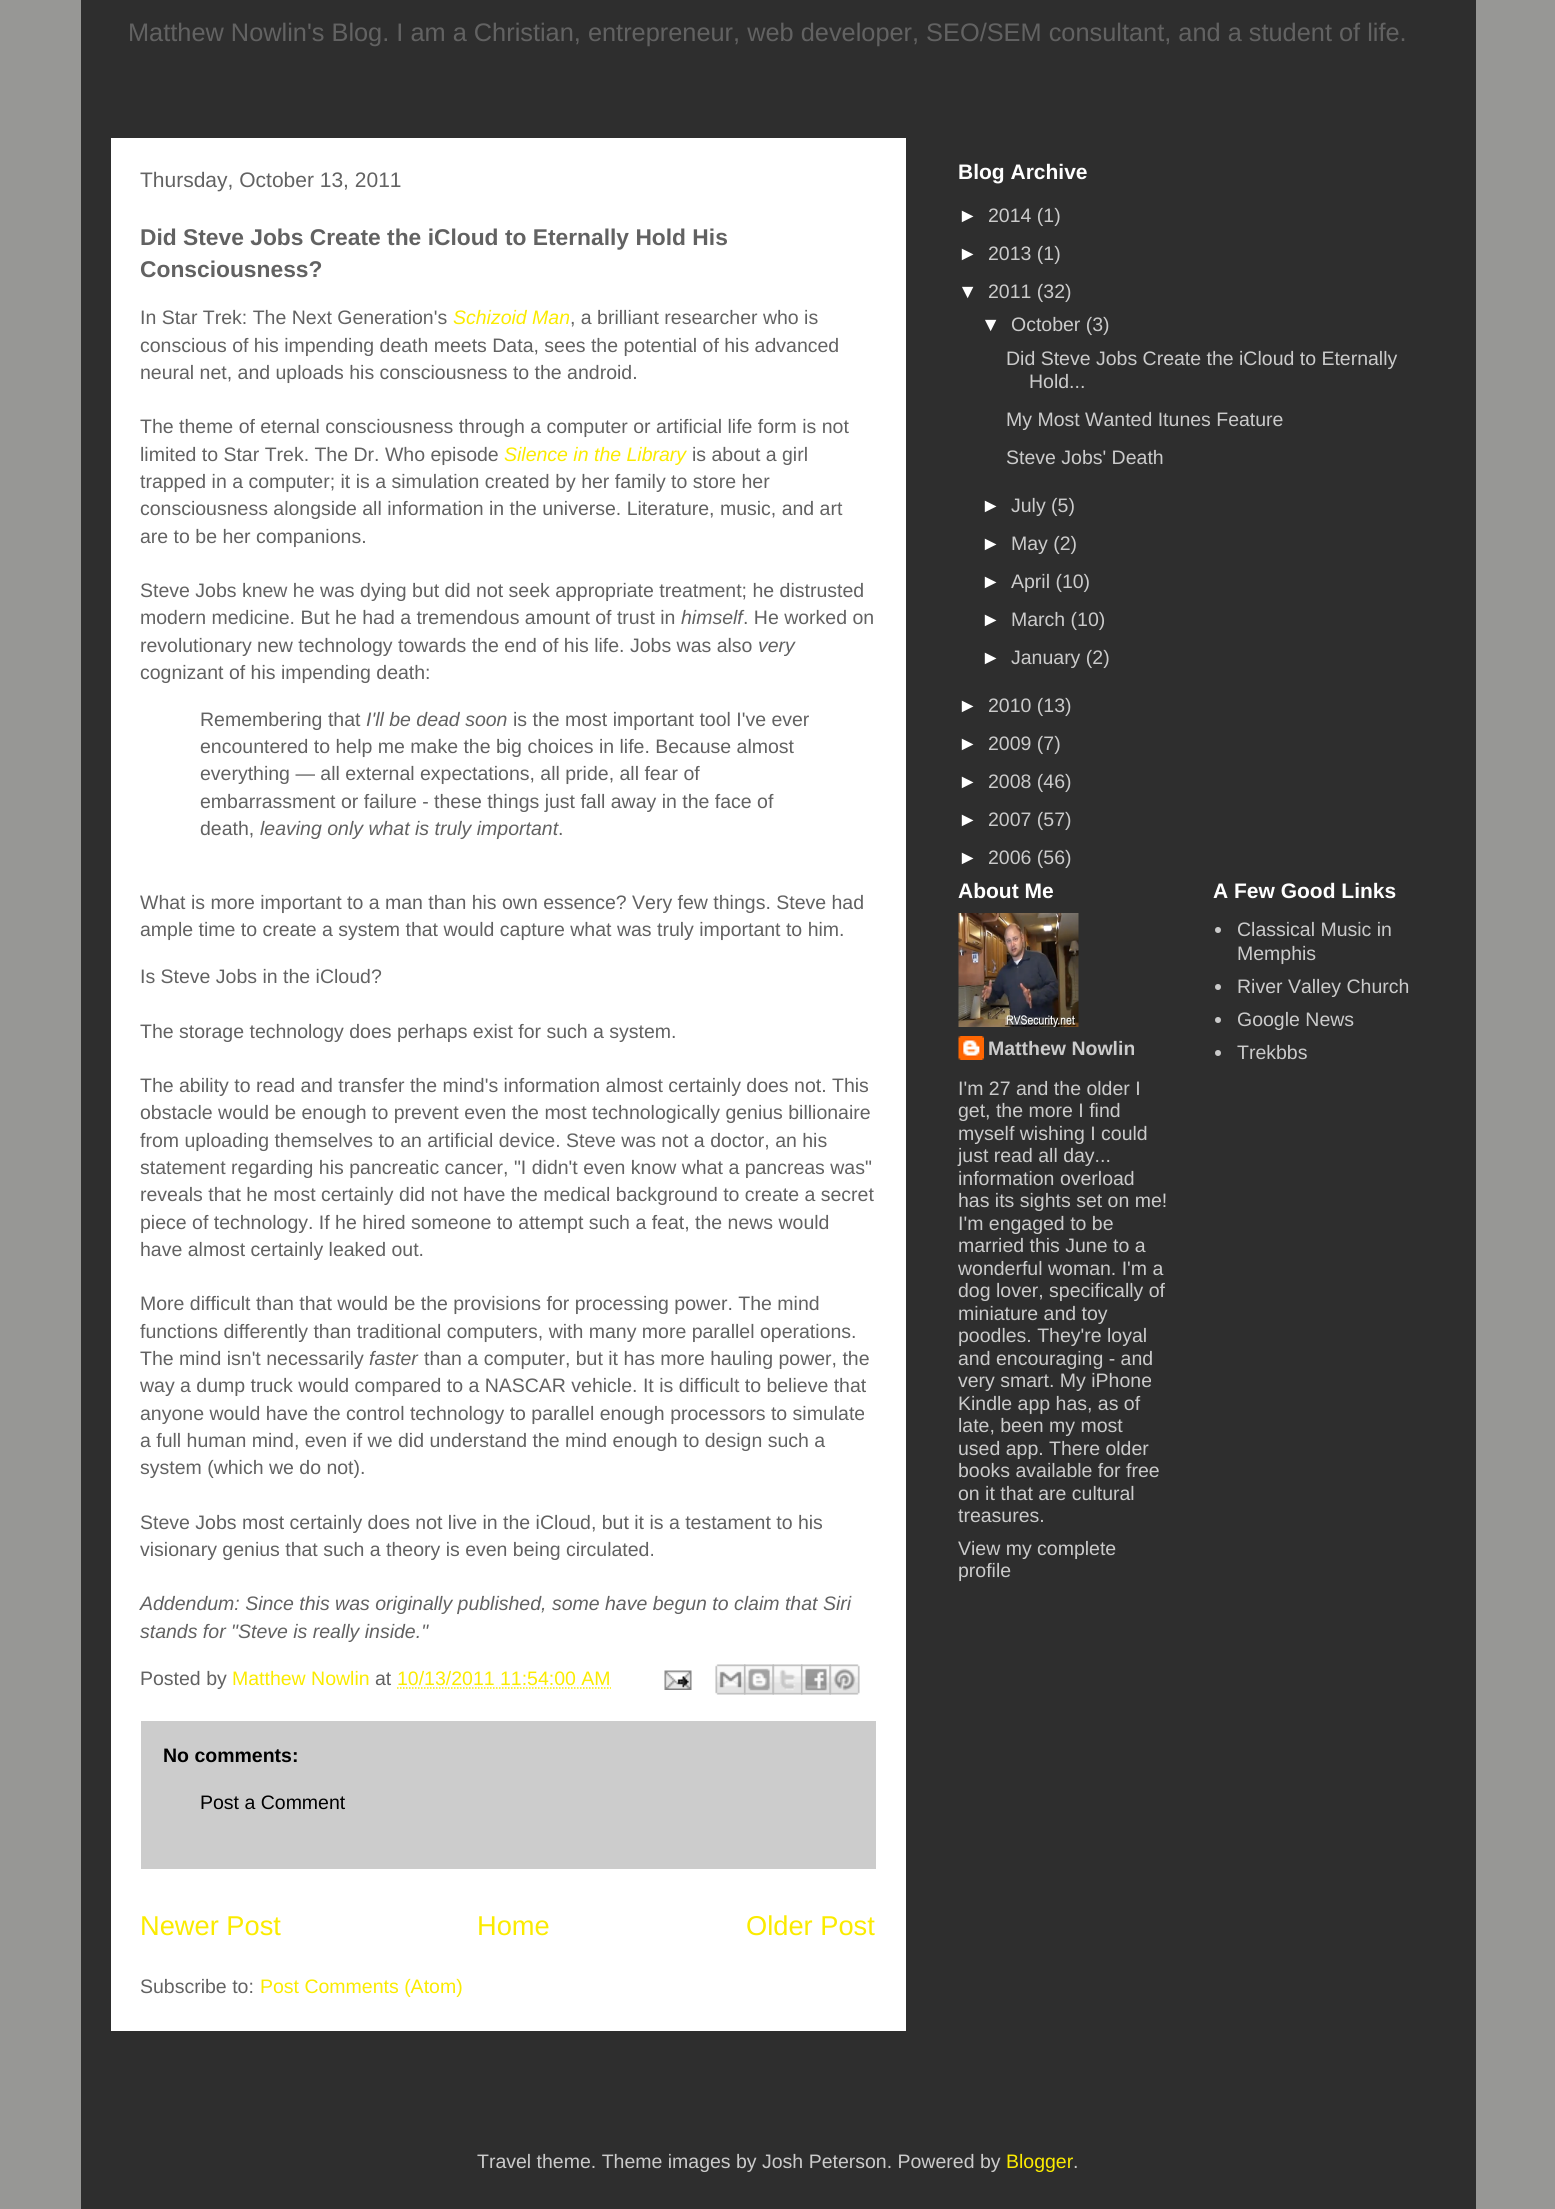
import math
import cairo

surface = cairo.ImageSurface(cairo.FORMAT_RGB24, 1555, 2209)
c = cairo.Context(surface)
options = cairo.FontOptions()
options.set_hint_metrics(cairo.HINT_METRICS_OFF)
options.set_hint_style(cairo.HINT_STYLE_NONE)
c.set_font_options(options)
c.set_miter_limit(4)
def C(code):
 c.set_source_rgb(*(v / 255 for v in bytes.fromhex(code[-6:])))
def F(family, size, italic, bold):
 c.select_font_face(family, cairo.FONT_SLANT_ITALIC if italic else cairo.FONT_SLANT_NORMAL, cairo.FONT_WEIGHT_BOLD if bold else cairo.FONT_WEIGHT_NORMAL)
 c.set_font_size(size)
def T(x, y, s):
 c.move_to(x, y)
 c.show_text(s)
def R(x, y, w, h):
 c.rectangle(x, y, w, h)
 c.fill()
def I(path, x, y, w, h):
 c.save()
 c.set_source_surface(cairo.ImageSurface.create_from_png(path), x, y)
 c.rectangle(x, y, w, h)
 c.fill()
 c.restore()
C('979795')
c.paint()
C('2e2e2e')
R(81,0,1395,2209)
F('Liberation Sans',25.35,0,0)
C('626262')
T(128,41,'Matthew Nowlin\'s Blog. I am a Christian, entrepreneur, web developer, SEO/SEM consultant, and a student of life.')
C('ffffff')
R(111,138,795,1893)
F('Liberation Sans',21,0,0)
C('626262')
T(140,187,'Thursday, October 13, 2011')
F('Liberation Sans',22.8,0,1)
T(140,245,'Did Steve Jobs Create the iCloud to Eternally Hold His')
T(140,277,'Consciousness?')
F('Liberation Sans',19.5,0,0)
T(140,324,'In Star Trek: The Next Generation\'s')
F('Liberation Sans',19.5,1,0)
C('fbeb00')
T(453,324,'Schizoid Man')
F('Liberation Sans',19.5,0,0)
C('626262')
T(570,324,', a brilliant researcher who is')
T(140,352,'conscious of his impending death meets Data, sees the potential of his advanced')
T(140,379,'neural net, and uploads his consciousness to the android.')
T(140,433,'The theme of eternal consciousness through a computer or artificial life form is not')
T(140,461,'limited to Star Trek. The Dr. Who episode')
F('Liberation Sans',19.5,1,0)
C('fbeb00')
T(504,461,'Silence in the Library')
F('Liberation Sans',19.5,0,0)
C('626262')
T(692,461,'is about a girl')
T(140,488,'trapped in a computer; it is a simulation created by her family to store her')
T(140,515,'consciousness alongside all information in the universe. Literature, music, and art')
T(140,543,'are to be her companions.')
T(140,597,'Steve Jobs knew he was dying but did not seek appropriate treatment; he distrusted')
T(140,624,'modern medicine. But he had a tremendous amount of trust in')
F('Liberation Sans',19.5,1,0)
T(681,624,'himself')
F('Liberation Sans',19.5,0,0)
T(743,624,'. He worked on')
T(140,652,'revolutionary new technology towards the end of his life. Jobs was also')
F('Liberation Sans',19.5,1,0)
T(758,652,'very')
F('Liberation Sans',19.5,0,0)
T(140,679,'cognizant of his impending death:')
T(200,726,'Remembering that')
F('Liberation Sans',19.5,1,0)
T(366,726,'I\'ll be dead soon')
F('Liberation Sans',19.5,0,0)
T(513,726,'is the most important tool I\'ve ever')
T(200,753,'encountered to help me make the big choices in life. Because almost')
T(200,780,'everything — all external expectations, all pride, all fear of')
T(200,808,'embarrassment or failure - these things just fall away in the face of')
T(200,835,'death,')
F('Liberation Sans',19.5,1,0)
T(260,835,'leaving only what is truly important')
F('Liberation Sans',19.5,0,0)
T(558,835,'.')
T(140,909,'What is more important to a man than his own essence? Very few things. Steve had')
T(140,936,'ample time to create a system that would capture what was truly important to him.')
T(140,983,'Is Steve Jobs in the iCloud?')
T(140,1038,'The storage technology does perhaps exist for such a system.')
T(140,1092,'The ability to read and transfer the mind\'s information almost certainly does not. This')
T(140,1119,'obstacle would be enough to prevent even the most technologically genius billionaire')
T(140,1147,'from uploading themselves to an artificial device. Steve was not a doctor, an his')
T(140,1174,'statement regarding his pancreatic cancer, "I didn\'t even know what a pancreas was"')
T(140,1201,'reveals that he most certainly did not have the medical background to create a secret')
T(140,1229,'piece of technology. If he hired someone to attempt such a feat, the news would')
T(140,1256,'have almost certainly leaked out.')
T(140,1310,'More difficult than that would be the provisions for processing power. The mind')
T(140,1338,'functions differently than traditional computers, with many more parallel operations.')
T(140,1365,'The mind isn\'t necessarily')
F('Liberation Sans',19.5,1,0)
T(369,1365,'faster')
F('Liberation Sans',19.5,0,0)
T(424,1365,'than a computer, but it has more hauling power, the')
T(140,1392,'way a dump truck would compared to a NASCAR vehicle. It is difficult to believe that')
T(140,1420,'anyone would have the control technology to parallel enough processors to simulate')
T(140,1447,'a full human mind, even if we did understand the mind enough to design such a')
T(140,1474,'system (which we do not).')
T(140,1529,'Steve Jobs most certainly does not live in the iCloud, but it is a testament to his')
T(140,1556,'visionary genius that such a theory is even being circulated.')
F('Liberation Sans',19.5,1,0)
T(140,1610,'Addendum: Since this was originally published, some have begun to claim that Siri')
T(140,1638,'stands for "Steve is really inside."')
F('Liberation Sans',19.5,0,0)
T(140,1685,'Posted by')
C('fbeb00')
T(232,1685,'Matthew Nowlin')
C('626262')
T(375,1685,'at')
C('fbeb00')
T(397,1685,'10/13/2011 11:54:00 AM')
c.new_path()
c.move_to(397,1688)
c.line_to(611,1688)
c.set_line_width(1.5)
c.set_dash([1.5,1.5])
c.stroke()
I('1.png',664,1670,28,20)
I('2.png',715,1664,31,31)
I('3.png',744,1664,30,31)
I('4.png',772,1664,31,31)
I('5.png',801,1664,30,31)
I('6.png',829,1664,31,31)
C('cccccc')
R(141,1721,735,148)
F('Liberation Sans',19.5,0,1)
C('000000')
T(163,1762,'No comments:')
F('Liberation Sans',19.5,0,0)
T(200,1809,'Post a Comment')
F('Liberation Sans',27.25,0,0)
C('fbeb00')
T(140,1935,'Newer Post')
T(477,1935,'Home')
T(746,1935,'Older Post')
F('Liberation Sans',19.5,0,0)
C('626262')
T(140,1993,'Subscribe to:')
C('fbeb00')
T(260,1993,'Post Comments (Atom)')
F('Liberation Sans',21,0,1)
C('ffffff')
T(958,179,'Blog Archive')
F('Liberation Sans',19.5,0,0)
T(958,222,'►')
C('cbcbcb')
T(988,222,'2014 (1)')
C('ffffff')
T(958,260,'►')
C('cbcbcb')
T(988,260,'2013 (1)')
C('ffffff')
T(958,298,'▼')
C('cbcbcb')
T(988,298,'2011 (32)')
C('ffffff')
T(981,331,'▼')
C('cbcbcb')
T(1011,331,'October (3)')
T(1006,365,'Did Steve Jobs Create the iCloud to Eternally')
T(1029,388,'Hold...')
T(1006,426,'My Most Wanted Itunes Feature')
T(1006,464,'Steve Jobs\' Death')
C('ffffff')
T(981,512,'►')
C('cbcbcb')
T(1011,512,'July (5)')
C('ffffff')
T(981,550,'►')
C('cbcbcb')
T(1011,550,'May (2)')
C('ffffff')
T(981,588,'►')
C('cbcbcb')
T(1011,588,'April (10)')
C('ffffff')
T(981,626,'►')
C('cbcbcb')
T(1011,626,'March (10)')
C('ffffff')
T(981,664,'►')
C('cbcbcb')
T(1011,664,'January (2)')
C('ffffff')
T(958,712,'►')
C('cbcbcb')
T(988,712,'2010 (13)')
C('ffffff')
T(958,750,'►')
C('cbcbcb')
T(988,750,'2009 (7)')
C('ffffff')
T(958,788,'►')
C('cbcbcb')
T(988,788,'2008 (46)')
C('ffffff')
T(958,826,'►')
C('cbcbcb')
T(988,826,'2007 (57)')
C('ffffff')
T(958,864,'►')
C('cbcbcb')
T(988,864,'2006 (56)')
F('Liberation Sans',21,0,1)
C('ffffff')
T(958,898,'About Me')
I('7.png',958,913,121,114)
I('8.png',958,1036,26,24)
F('Liberation Sans',19.5,0,1)
C('cbcbcb')
T(988,1055,'Matthew Nowlin')
F('Liberation Sans',19.5,0,0)
T(958,1095,'I\'m 27 and the older I')
T(958,1117,'get, the more I find')
T(958,1140,'myself wishing I could')
T(958,1162,'just read all day...')
T(958,1185,'information overload')
T(958,1207,'has its sights set on me!')
T(958,1230,'I\'m engaged to be')
T(958,1252,'married this June to a')
T(958,1275,'wonderful woman. I\'m a')
T(958,1297,'dog lover, specifically of')
T(958,1320,'miniature and toy')
T(958,1342,'poodles. They\'re loyal')
T(958,1365,'and encouraging - and')
T(958,1387,'very smart. My iPhone')
T(958,1410,'Kindle app has, as of')
T(958,1432,'late, been my most')
T(958,1455,'used app. There older')
T(958,1477,'books available for free')
T(958,1500,'on it that are cultural')
T(958,1522,'treasures.')
T(958,1555,'View my complete')
T(958,1577,'profile')
F('Liberation Sans',21,0,1)
C('ffffff')
T(1213,898,'A Few Good Links')
C('cbcbcb')
c.new_path()
c.arc(1218,930,3,0,2 * math.pi)
c.fill()
F('Liberation Sans',19.5,0,0)
T(1237,936,'Classical Music in')
T(1237,960,'Memphis')
c.new_path()
c.arc(1218,987,3,0,2 * math.pi)
c.fill()
T(1237,993,'River Valley Church')
c.new_path()
c.arc(1218,1020,3,0,2 * math.pi)
c.fill()
T(1237,1026,'Google News')
c.new_path()
c.arc(1218,1053,3,0,2 * math.pi)
c.fill()
T(1237,1059,'Trekbbs')
T(477,2168,'Travel theme. Theme images by Josh Peterson. Powered by')
C('fbeb00')
T(1006,2168,'Blogger')
C('cbcbcb')
T(1073,2168,'.')
surface.write_to_png('o.png')
